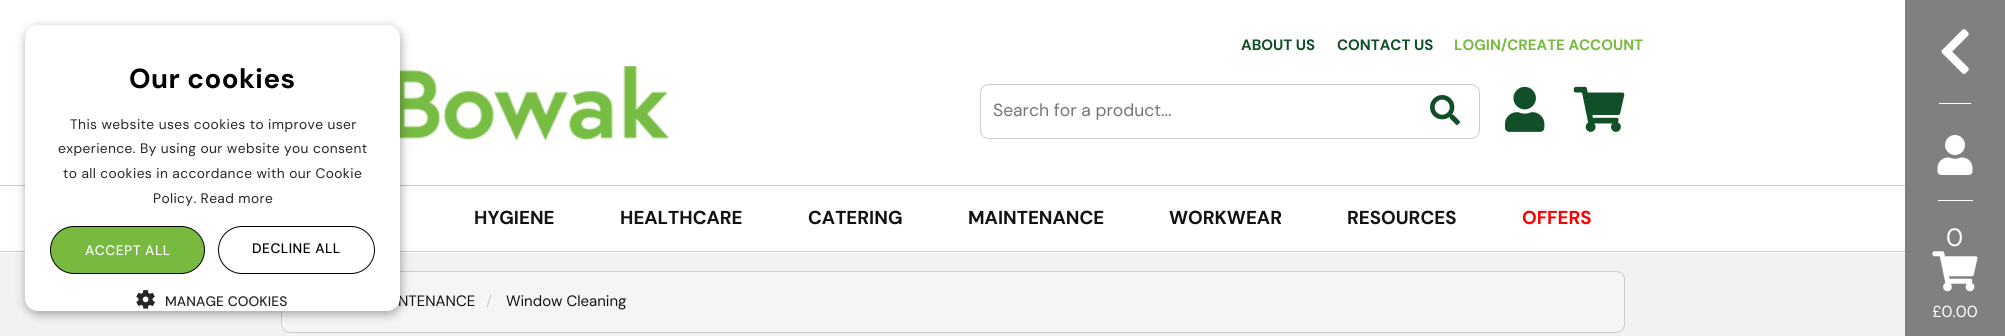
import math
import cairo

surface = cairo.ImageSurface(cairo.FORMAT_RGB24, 2005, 336)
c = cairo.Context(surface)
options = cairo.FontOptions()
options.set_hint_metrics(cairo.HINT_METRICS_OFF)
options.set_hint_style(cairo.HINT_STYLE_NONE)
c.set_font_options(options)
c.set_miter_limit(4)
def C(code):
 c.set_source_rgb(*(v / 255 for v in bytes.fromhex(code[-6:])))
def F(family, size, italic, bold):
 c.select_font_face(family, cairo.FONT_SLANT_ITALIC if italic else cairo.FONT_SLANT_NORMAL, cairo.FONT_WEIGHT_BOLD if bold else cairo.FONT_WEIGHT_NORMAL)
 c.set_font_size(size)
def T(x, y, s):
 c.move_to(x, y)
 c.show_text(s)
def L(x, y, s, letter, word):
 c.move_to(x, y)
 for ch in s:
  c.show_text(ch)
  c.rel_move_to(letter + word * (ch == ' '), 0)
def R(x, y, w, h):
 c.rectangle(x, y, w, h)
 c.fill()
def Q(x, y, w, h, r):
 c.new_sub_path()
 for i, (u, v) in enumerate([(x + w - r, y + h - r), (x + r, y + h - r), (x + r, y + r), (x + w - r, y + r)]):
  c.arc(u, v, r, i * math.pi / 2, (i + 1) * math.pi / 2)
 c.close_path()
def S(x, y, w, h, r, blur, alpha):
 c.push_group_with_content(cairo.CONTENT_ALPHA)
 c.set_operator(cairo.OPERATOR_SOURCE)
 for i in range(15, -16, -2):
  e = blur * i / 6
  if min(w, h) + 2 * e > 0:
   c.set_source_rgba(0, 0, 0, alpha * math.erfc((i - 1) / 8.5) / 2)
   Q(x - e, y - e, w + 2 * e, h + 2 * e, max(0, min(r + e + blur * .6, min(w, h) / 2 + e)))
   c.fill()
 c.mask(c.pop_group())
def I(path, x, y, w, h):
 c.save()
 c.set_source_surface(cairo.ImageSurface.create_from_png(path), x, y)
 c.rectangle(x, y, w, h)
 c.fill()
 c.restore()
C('f2f2f2')
c.paint()
C('ffffff')
R(0,0,1905,253)
I('2.png',400,66,269,75)
C('cccccc')
R(0,185,1905,1)
R(0,251,1905,1)
C('f5f5f5')
Q(281.5,271.5,1343,61,8.5)
c.fill_preserve()
C('cccccc')
c.set_line_width(1)
c.stroke()
C('000000')
S(26,28,375,286,13,5,.35)
F('DM Sans',15,0,0)
C('121212')
T(398,306,'NTENANCE')
C('ffffff')
Q(25,25,375,286,13)
c.fill()
F('DM Sans',27.5,0,1)
C('000000')
L(129,88,'Our cookies',.5,0)
F('DM Sans',13.75,0,0)
C('262626')
L(70,129,'This website uses cookies to improve user',.4,0)
L(58,153,'experience. By using our website you consent',.4,0)
L(63,178,'to all cookies in accordance with our Cookie',.4,0)
L(153,203,'Policy. Read more',.4,0)
C('77ba3f')
Q(50.5,226.5,154,47,23.5)
c.fill_preserve()
C('000000')
c.stroke()
F('DM Sans Medium',13.75,0,0)
C('ffffff')
L(85,255,'ACCEPT ALL',.5,0)
Q(218.5,226.5,156,47,23.5)
C('000000')
c.stroke()
L(252,253,'DECLINE ALL',.5,0)
I('1.png',136,290,19,19)
C('262626')
L(165,306,'MANAGE COOKIES',.1,0)
F('DM Sans',15,0,1)
C('104f27')
T(1241,50,'ABOUT US')
T(1337,50,'CONTACT US')
C('77ba3f')
T(1454,50,'LOGIN/CREATE ACCOUNT')
Q(980.5,84.5,499,54,8.5)
C('cccccc')
c.stroke()
F('DM Sans',17.5,0,0)
C('757575')
T(993,116,'Search for a product...')
I('3.png',1430,95,30,30)
I('4.png',1505,86,40,46)
I('5.png',1573,86,52,46)
F('DM Sans',18.75,0,1)
C('121212')
T(474,224,'HYGIENE')
T(620,224,'HEALTHCARE')
T(808,224,'CATERING')
T(968,224,'MAINTENANCE')
T(1169,224,'WORKWEAR')
T(1347,224,'RESOURCES')
C('ff0000')
T(1522,224,'OFFERS')
F('DM Sans',15,0,0)
C('cccccc')
T(486,306,'/')
C('121212')
T(506,306,'Window Cleaning')
C('808080')
R(1905,0,100,336)
C('ffffff')
R(1939,103,32,1)
I('6.png',1941,29,28,45)
R(1938,200,35,1)
I('7.png',1937,135,36,40)
F('DM Sans',25,0,0)
T(1946,246,'0')
I('8.png',1932,251,46,41)
F('DM Sans',16,0,0)
T(1932,317,'£0.00')
surface.write_to_png('o.png')
